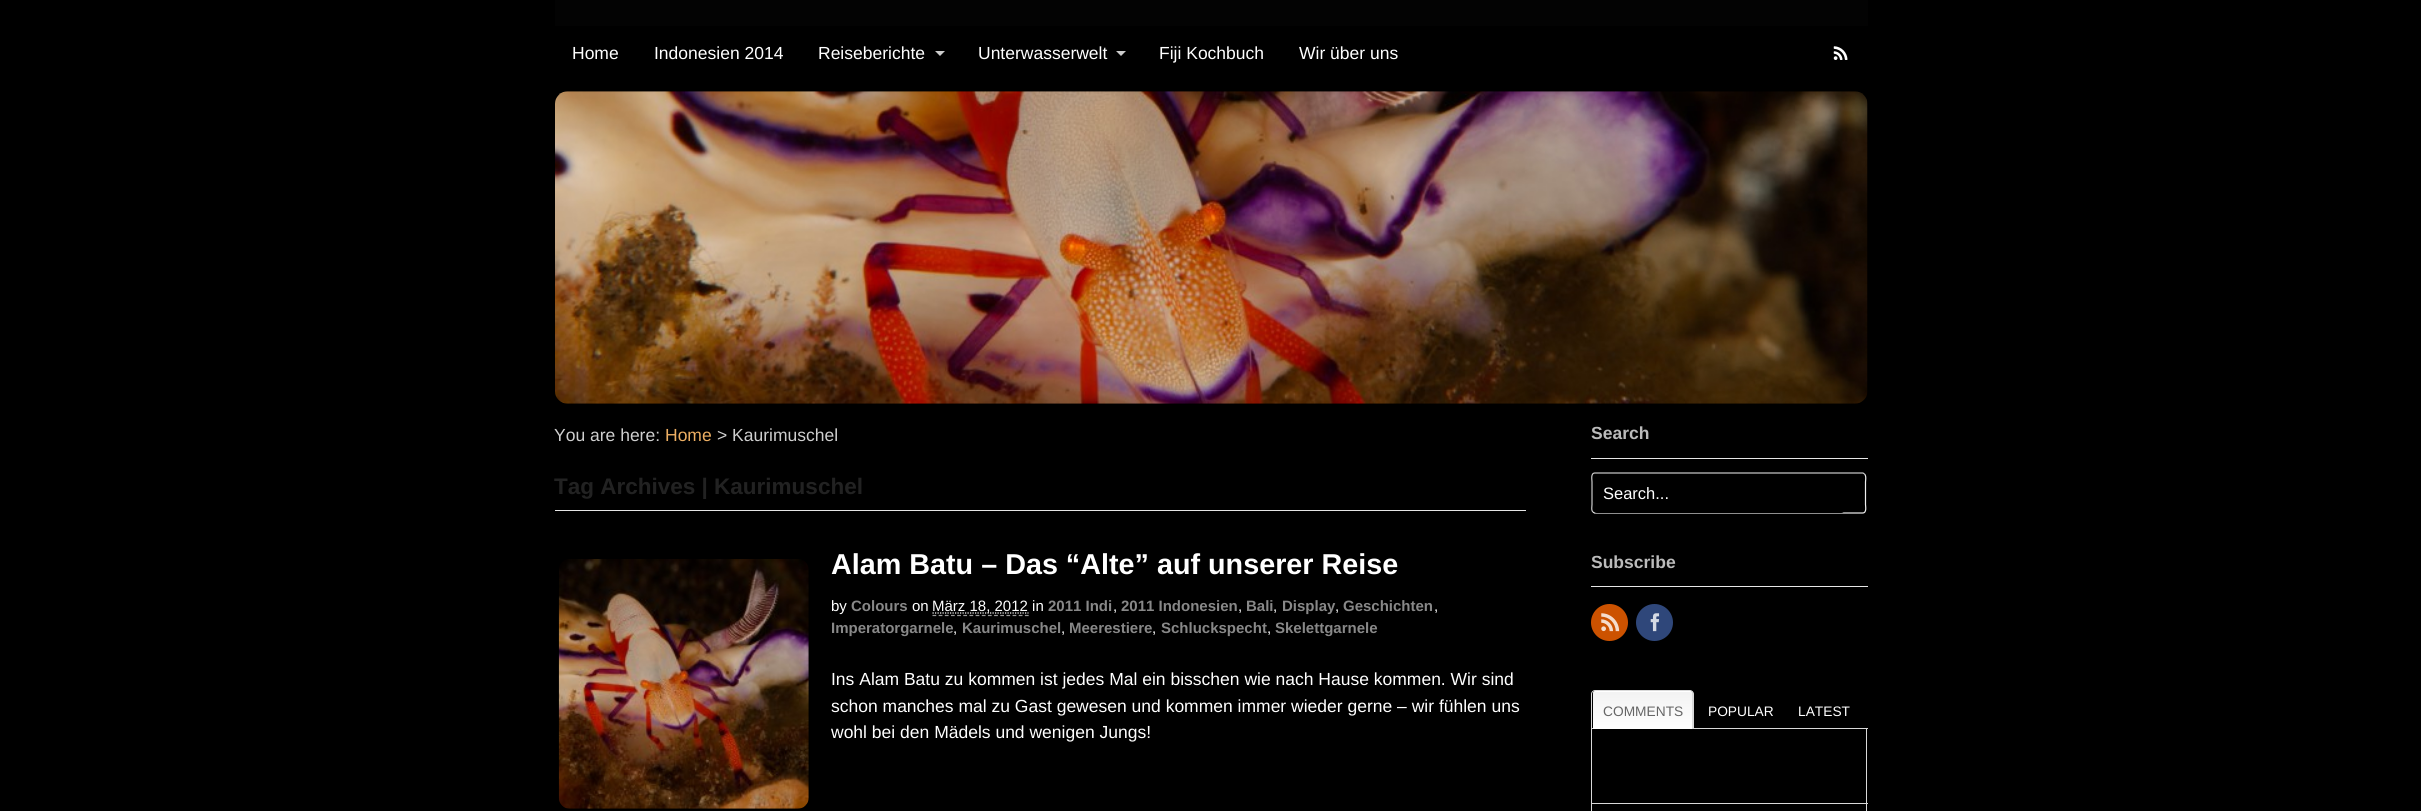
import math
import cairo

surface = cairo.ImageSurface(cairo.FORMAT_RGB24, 2421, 811)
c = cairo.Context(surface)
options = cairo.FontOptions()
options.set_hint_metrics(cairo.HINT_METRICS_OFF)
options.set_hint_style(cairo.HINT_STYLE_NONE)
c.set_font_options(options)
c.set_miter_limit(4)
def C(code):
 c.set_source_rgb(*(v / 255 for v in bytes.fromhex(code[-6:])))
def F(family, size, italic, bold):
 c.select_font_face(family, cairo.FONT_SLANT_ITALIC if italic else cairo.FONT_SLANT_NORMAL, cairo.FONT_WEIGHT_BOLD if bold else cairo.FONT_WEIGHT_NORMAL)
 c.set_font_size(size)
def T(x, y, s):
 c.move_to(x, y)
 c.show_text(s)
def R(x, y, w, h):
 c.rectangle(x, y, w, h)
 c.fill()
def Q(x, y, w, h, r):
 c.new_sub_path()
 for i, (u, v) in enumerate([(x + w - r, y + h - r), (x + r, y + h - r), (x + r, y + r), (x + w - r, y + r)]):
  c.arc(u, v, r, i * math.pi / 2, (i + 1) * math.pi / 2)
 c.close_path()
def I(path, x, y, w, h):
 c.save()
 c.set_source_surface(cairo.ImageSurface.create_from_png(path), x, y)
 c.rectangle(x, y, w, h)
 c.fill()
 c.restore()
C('000000')
c.paint()
C('030303')
R(555,0,1313,26)
F('Liberation Sans',17.5,0,0)
C('ffffff')
T(572,59,'Home')
T(654,59,'Indonesien 2014')
T(818,59,'Reiseberichte')
C('cccccc')
c.new_path()
c.move_to(935,51)
c.line_to(945,51)
c.line_to(940,56)
c.close_path()
c.fill()
C('ffffff')
T(978,59,'Unterwasserwelt')
C('cccccc')
c.new_path()
c.move_to(1116,51)
c.line_to(1126,51)
c.line_to(1121,56)
c.close_path()
c.fill()
C('ffffff')
T(1159,59,'Fiji Kochbuch')
T(1299,59,'Wir über uns')
I('1.png',1833,46,15,14)
I('2.png',555,91,1313,313)
C('cfcfcf')
T(554,441,'You are here:')
C('edaf63')
T(665,441,'Home')
C('cfcfcf')
T(717,441,'> Kaurimuschel')
C('e6e6e6')
R(555,510,971,1)
F('Liberation Sans',22.5,0,1)
C('222222')
T(554,494,'Tag Archives | Kaurimuschel')
I('3.png',558,559,251,250)
F('Liberation Sans',28.75,0,1)
C('ffffff')
T(831,574,'Alam Batu – Das “Alte” auf unserer Reise')
F('Liberation Sans',15,0,0)
T(831,611,'by')
F('Liberation Sans',15,0,1)
C('888888')
T(851,611,'Colours')
F('Liberation Sans',15,0,0)
C('ffffff')
T(912,611,'on')
c.new_path()
c.move_to(932.5,613)
c.line_to(1028.5,613)
c.set_line_width(1.2)
c.set_dash([1.25,1.25])
c.stroke()
T(932,611,'März 18, 2012 in')
c.new_path()
c.move_to(932.5,615.5)
c.line_to(1029,615.5)
C('999999')
c.set_dash([3.75,2.41])
c.stroke()
F('Liberation Sans',15,0,1)
C('888888')
T(1048,611,'2011 Indi')
F('Liberation Sans',15,0,0)
C('ffffff')
T(1113,611,',')
F('Liberation Sans',15,0,1)
C('888888')
T(1121,611,'2011 Indonesien')
F('Liberation Sans',15,0,0)
C('ffffff')
T(1238,611,',')
F('Liberation Sans',15,0,1)
C('888888')
T(1246,611,'Bali')
F('Liberation Sans',15,0,0)
C('ffffff')
T(1273,611,',')
F('Liberation Sans',15,0,1)
C('888888')
T(1282,611,'Display')
F('Liberation Sans',15,0,0)
C('ffffff')
T(1335,611,',')
F('Liberation Sans',15,0,1)
C('888888')
T(1343,611,'Geschichten')
F('Liberation Sans',15,0,0)
C('ffffff')
T(1434,611,',')
F('Liberation Sans',15,0,1)
C('888888')
T(831,633,'Imperatorgarnele')
F('Liberation Sans',15,0,0)
C('ffffff')
T(953,633,',')
F('Liberation Sans',15,0,1)
C('888888')
T(962,633,'Kaurimuschel')
F('Liberation Sans',15,0,0)
C('ffffff')
T(1061,633,',')
F('Liberation Sans',15,0,1)
C('888888')
T(1069,633,'Meerestiere')
F('Liberation Sans',15,0,0)
C('ffffff')
T(1152,633,',')
F('Liberation Sans',15,0,1)
C('888888')
T(1161,633,'Schluckspecht')
F('Liberation Sans',15,0,0)
C('ffffff')
T(1267,633,',')
F('Liberation Sans',15,0,1)
C('888888')
T(1275,633,'Skelettgarnele')
F('Liberation Sans',17.5,0,0)
C('ffffff')
T(831,685,'Ins Alam Batu zu kommen ist jedes Mal ein bisschen wie nach Hause kommen. Wir sind')
T(831,712,'schon manches mal zu Gast gewesen und kommen immer wieder gerne – wir fühlen uns')
T(831,738,'wohl bei den Mädels und wenigen Jungs!')
C('e6e6e6')
R(1591,458,277,1)
F('Liberation Sans',17.5,0,1)
C('bbbbbb')
T(1591,439,'Search')
c.new_path()
c.move_to(1864.5,474)
c.curve_to(1866.5,476,1865.5,480.5,1865.5,482)
c.line_to(1865.5,504.5)
c.curve_to(1865.5,506.5,1867,513,1862.5,513)
c.line_to(1594.5,513)
c.line_to(1593,512)
C('efefef')
c.set_dash([])
c.stroke()
c.new_path()
c.move_to(1593,512)
c.curve_to(1591,510.5,1592,506,1592,504.5)
c.line_to(1592,482)
c.curve_to(1592,479.5,1590.5,473,1595,473)
c.line_to(1863,473)
c.line_to(1864.5,474)
C('cccccc')
c.stroke()
C('000000')
Q(1593,474,252,39,4)
c.fill()
F('Liberation Sans',16.5,0,0)
C('ffffff')
T(1603,499,'Search...')
C('e6e6e6')
R(1591,586,277,1)
F('Liberation Sans',17.5,0,1)
C('bbbbbb')
T(1591,568,'Subscribe')
C('cc5200')
c.new_path()
c.arc(1609.5,622.5,18.5,0,2 * math.pi)
c.fill()
I('4.png',1601,613,19,19)
C('2f477a')
c.arc(1654.5,622.5,18.5,0,2 * math.pi)
c.fill()
I('5.png',1650,613,10,19)
C('d9d9d9')
R(1591,728,277,1)
gradient = cairo.LinearGradient(1643,691,1643,729)
gradient.add_color_stop_rgba(0,0.949,0.949,0.949,1)
gradient.add_color_stop_rgba(1,1,1,1,1)
c.set_source(gradient)
c.new_path()
c.move_to(1595.5,691)
c.line_to(1690.5,691)
c.curve_to(1692,691,1693,692,1693,693.5)
c.line_to(1693,729)
c.line_to(1593,729)
c.line_to(1593,693.5)
c.curve_to(1593,692,1594,691,1595.5,691)
c.close_path()
c.fill()
C('ffffff')
c.new_path()
c.move_to(1595,692)
c.line_to(1690,692)
c.curve_to(1691,692,1692,694,1692,695)
c.line_to(1692,729)
c.line_to(1693,729)
c.line_to(1693,694)
c.curve_to(1693,692,1692,691,1690,691)
c.line_to(1596,691)
c.curve_to(1594,691,1593,692,1593,693)
c.close_path()
c.fill()
C('d9d9d9')
c.set_fill_rule(cairo.FILL_RULE_EVEN_ODD)
c.new_path()
c.move_to(1595,690)
c.line_to(1690,690)
c.curve_to(1692,690,1694,692,1694,694)
c.line_to(1694,729)
c.line_to(1591,729)
c.line_to(1591,694)
c.curve_to(1591,692,1593,690,1595,690)
c.close_path()
c.move_to(1595,691)
c.line_to(1690,691)
c.curve_to(1691,691,1692,692,1692,694)
c.line_to(1692,729)
c.line_to(1592,729)
c.line_to(1592,694)
c.curve_to(1592,692,1594,691,1595,691)
c.close_path()
c.fill()
F('Liberation Sans',13.75,0,0)
C('666666')
T(1603,716,'COMMENTS')
C('ffffff')
T(1708,716,'POPULAR')
T(1798,716,'LATEST')
C('d9d9d9')
R(1866,729,1,82)
R(1591,803,277,1)
R(1591,729,1,82)
surface.write_to_png('o.png')
